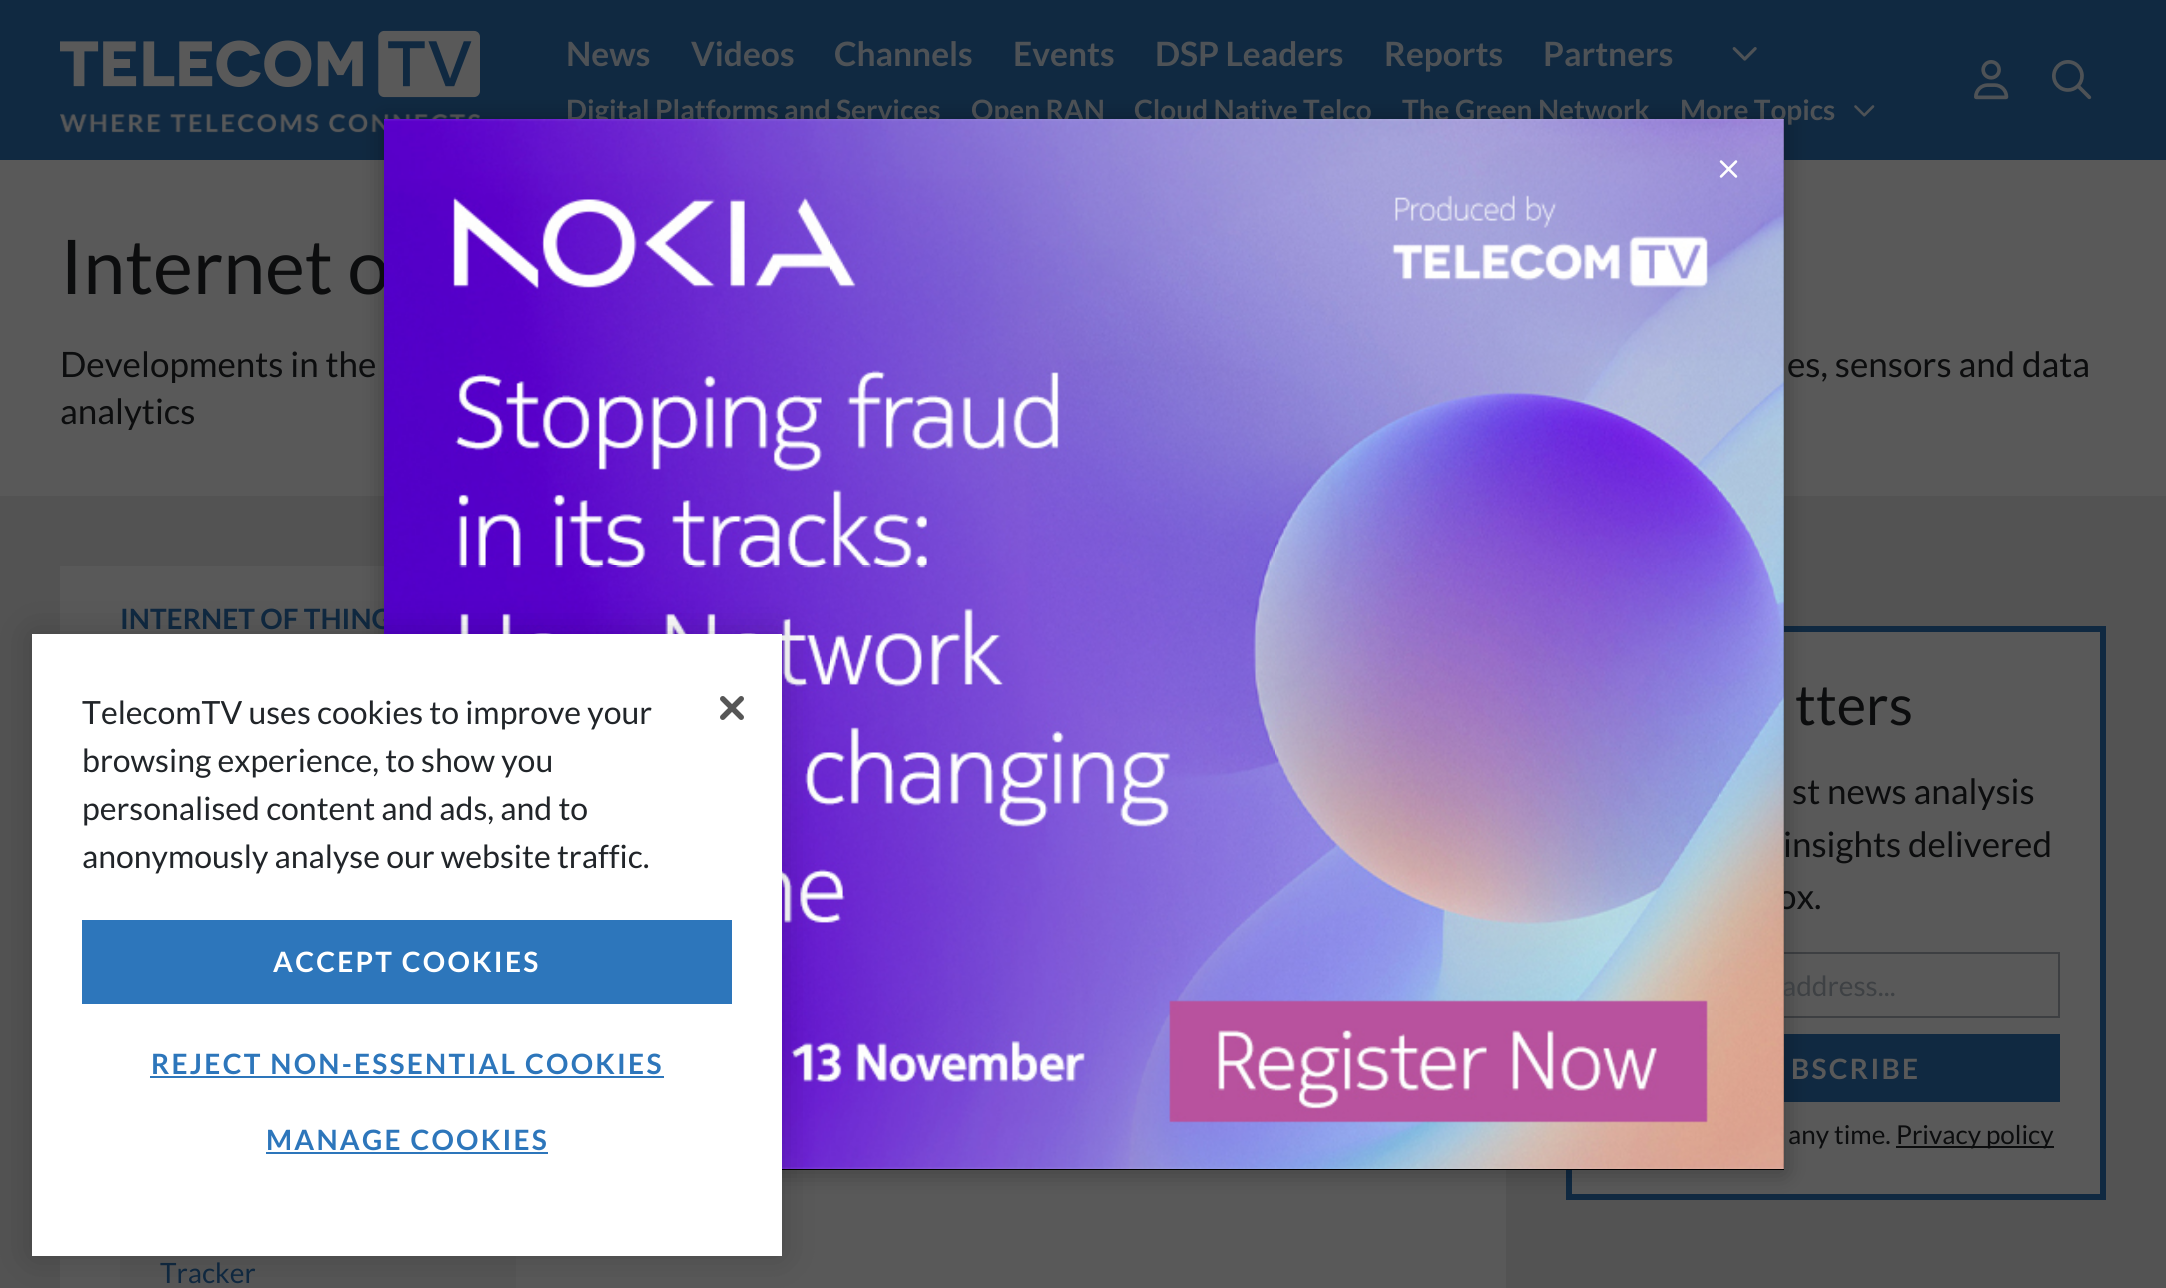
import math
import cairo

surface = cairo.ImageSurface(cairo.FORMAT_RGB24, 2166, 1288)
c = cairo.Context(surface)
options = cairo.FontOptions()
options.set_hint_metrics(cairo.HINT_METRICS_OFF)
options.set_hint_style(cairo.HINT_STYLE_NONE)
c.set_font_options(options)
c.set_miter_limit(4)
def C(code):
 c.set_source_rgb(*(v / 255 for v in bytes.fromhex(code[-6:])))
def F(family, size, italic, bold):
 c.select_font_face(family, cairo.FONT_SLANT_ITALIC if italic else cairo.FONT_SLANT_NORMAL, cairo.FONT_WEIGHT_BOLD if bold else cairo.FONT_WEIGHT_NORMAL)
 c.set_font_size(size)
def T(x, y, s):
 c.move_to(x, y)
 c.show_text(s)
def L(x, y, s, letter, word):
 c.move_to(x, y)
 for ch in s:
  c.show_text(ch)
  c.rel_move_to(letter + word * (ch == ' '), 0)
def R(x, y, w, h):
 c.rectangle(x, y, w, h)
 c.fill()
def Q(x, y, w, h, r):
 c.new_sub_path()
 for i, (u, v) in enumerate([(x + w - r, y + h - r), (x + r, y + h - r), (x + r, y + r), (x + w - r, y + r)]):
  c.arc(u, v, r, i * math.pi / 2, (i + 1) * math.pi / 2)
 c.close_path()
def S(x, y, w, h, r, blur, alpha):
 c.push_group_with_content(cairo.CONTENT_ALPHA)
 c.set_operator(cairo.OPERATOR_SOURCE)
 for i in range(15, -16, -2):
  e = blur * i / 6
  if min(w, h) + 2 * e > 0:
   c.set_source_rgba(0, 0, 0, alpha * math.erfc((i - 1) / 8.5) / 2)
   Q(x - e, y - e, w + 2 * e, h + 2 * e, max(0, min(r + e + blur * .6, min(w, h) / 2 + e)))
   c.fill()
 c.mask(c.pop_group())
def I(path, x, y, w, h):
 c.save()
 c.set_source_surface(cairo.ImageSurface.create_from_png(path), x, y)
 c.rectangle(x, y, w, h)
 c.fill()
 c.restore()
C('535353')
c.paint()
C('102941')
R(0,0,2166,160)
I('1.png',60,30,420,68)
I('2.png',60,113,420,20)
F('Lato',33.5,0,1)
C('4e5256')
T(566,66,'News')
T(691,66,'Videos')
T(834,66,'Channels')
T(1013,66,'Events')
T(1155,66,'DSP Leaders')
T(1384,66,'Reports')
T(1543,66,'Partners')
I('3.png',1732,47,25,14)
F('Lato',28,0,1)
T(566,120,'Digital Platforms and Services')
T(971,120,'Open RAN')
T(1134,120,'Cloud Native Telco')
T(1402,120,'The Green Network')
T(1680,120,'More Topics')
I('4.png',1854,105,21,12)
I('5.png',1974,60,35,40)
I('6.png',2052,60,40,40)
C('595959')
R(0,160,2166,336)
R(60,566,1446,722)
c.rectangle(1569,629,534,568)
c.fill_preserve()
C('102941')
c.set_line_width(6)
c.stroke()
c.rectangle(1613,953,446,64)
C('3d3f42')
c.set_line_width(2)
c.stroke()
C('102941')
R(1784,1034,276,68)
C('000000')
S(384,122,1400,1050,0,12,.3)
F('Lato',35,0,0)
C('0c0d0e')
T(1777,909,'ox.')
F('Lato',28,0,0)
C('3e4144')
T(1782,996,'address...')
C('000000')
R(782,120,1002,1050)
F('Lato',75.5,0,0)
C('0c0d0e')
T(60,294,'Internet o')
F('Lato',28,0,1)
C('102941')
T(120,629,'INTERNET OF THING')
I('7.png',384,119,1400,1050)
I('8.png',1719,160,19,18)
F('Lato',35,0,0)
C('0c0d0e')
T(60,377,'Developments in the')
T(1787,377,'es, sensors and data')
T(60,424,'analytics')
C('565656')
R(120,1256,396,32)
F('Lato',28,0,0)
C('102941')
T(160,1283,'Tracker')
F('Lato',56,0,0)
C('0c0d0e')
T(1795,725,'tters')
F('Lato',35,0,0)
T(1792,804,'st news analysis')
T(1783,857,'insights delivered')
F('Lato',28,0,1)
C('595959')
L(1791,1079,'BSCRIBE',2.25,0)
F('Lato',26,0,0)
C('0c0d0e')
T(1788,1144,'any time.')
R(1896,1146,158,2)
T(1896,1144,'Privacy policy')
C('000000')
S(32,634,750,622,0,18,.2)
C('ffffff')
R(32,634,750,622)
F('Lato',32,0,0)
C('212529')
T(82,724,'TelecomTV uses cookies to improve your')
T(82,772,'browsing experience, to show you')
T(82,820,'personalised content and ads, and to')
T(82,868,'anonymously analyse our website traffic.')
I('9.png',720,696,24,24)
C('2d76bb')
R(82,920,650,84)
F('Lato',28,0,1)
C('ffffff')
L(273,972,'ACCEPT COOKIES',2.25,0)
C('2d76bb')
L(151,1074,'REJECT NON-ESSENTIAL COOKIES',2.25,0)
R(150,1076,514,2)
L(266,1150,'MANAGE COOKIES',2.25,0)
R(266,1152,282,2)
surface.write_to_png('o.png')
